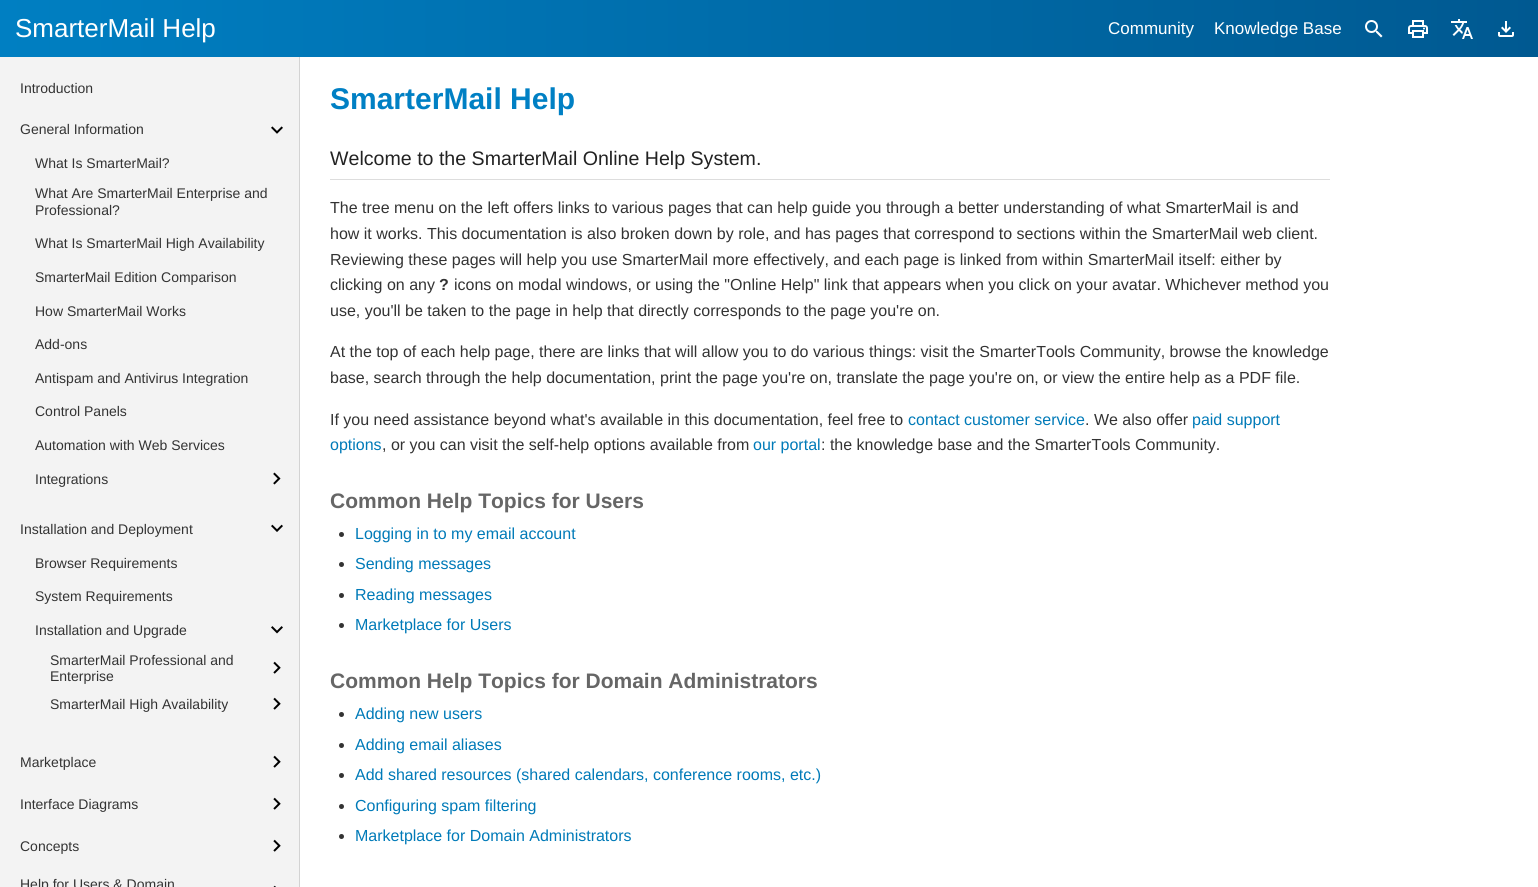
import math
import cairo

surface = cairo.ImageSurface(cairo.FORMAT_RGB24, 1538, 887)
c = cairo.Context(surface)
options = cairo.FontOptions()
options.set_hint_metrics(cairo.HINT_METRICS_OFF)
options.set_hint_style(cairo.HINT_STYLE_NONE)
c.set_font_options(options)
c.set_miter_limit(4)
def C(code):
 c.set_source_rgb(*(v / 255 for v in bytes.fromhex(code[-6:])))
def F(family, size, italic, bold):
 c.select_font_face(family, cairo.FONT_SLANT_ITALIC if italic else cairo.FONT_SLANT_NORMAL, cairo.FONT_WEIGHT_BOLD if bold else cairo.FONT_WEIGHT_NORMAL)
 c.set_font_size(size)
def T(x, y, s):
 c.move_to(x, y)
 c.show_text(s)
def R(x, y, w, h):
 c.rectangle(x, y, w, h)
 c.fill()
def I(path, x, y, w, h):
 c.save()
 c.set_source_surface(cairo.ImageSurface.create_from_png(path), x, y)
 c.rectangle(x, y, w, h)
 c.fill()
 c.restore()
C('ffffff')
c.paint()
gradient = cairo.LinearGradient(0,29,1538,28)
gradient.add_color_stop_rgba(0,0,0.498,0.761,1)
gradient.add_color_stop_rgba(1,0,0.349,0.569,1)
c.set_source(gradient)
R(0,0,1538,57)
F('Liberation Sans',26,0,0)
C('ffffff')
T(15,37,'SmarterMail Help')
F('Liberation Sans',17,0,0)
T(1108,34,'Community')
T(1214,34,'Knowledge Base')
I('1.png',1365,20,18,18)
I('2.png',1408,20,20,18)
I('3.png',1451,19,22,20)
I('4.png',1498,21,16,16)
C('f3f3f3')
R(0,57,299,830)
C('d3d3d3')
R(299,57,1,830)
F('Liberation Sans',14,0,0)
C('333333')
T(20,93,'Introduction')
T(20,134,'General Information')
I('5.png',271,126,12,8)
T(35,168,'What Is SmarterMail?')
T(35,198,'What Are SmarterMail Enterprise and')
T(35,215,'Professional?')
T(35,248,'What Is SmarterMail High Availability')
T(35,282,'SmarterMail Edition Comparison')
T(35,316,'How SmarterMail Works')
T(35,349,'Add-ons')
T(35,383,'Antispam and Antivirus Integration')
T(35,416,'Control Panels')
T(35,450,'Automation with Web Services')
T(35,484,'Integrations')
I('6.png',273,472,8,13)
T(20,534,'Installation and Deployment')
I('7.png',271,524,12,8)
T(35,568,'Browser Requirements')
T(35,601,'System Requirements')
T(35,635,'Installation and Upgrade')
I('8.png',271,626,12,8)
T(50,665,'SmarterMail Professional and')
T(50,681,'Enterprise')
I('9.png',273,661,8,13)
T(50,709,'SmarterMail High Availability')
I('9.png',273,697,8,13)
T(20,767,'Marketplace')
I('9.png',273,755,8,13)
T(20,809,'Interface Diagrams')
I('9.png',273,797,8,13)
T(20,851,'Concepts')
I('9.png',273,839,8,13)
T(20,889,'Help for Users & Domain')
I('10.png',273,885,3,2)
F('Liberation Sans',30,0,1)
C('0080c4')
T(330,109,'SmarterMail Help')
C('dddddd')
R(330,179,1000,1)
F('Liberation Sans',19.6,0,0)
C('222222')
T(330,165,'Welcome to the SmarterMail Online Help System.')
F('Liberation Sans',16,0,0)
C('333333')
T(330,213,'The tree menu on the left offers links to various pages that can help guide you through a better understanding of what SmarterMail is and')
T(330,239,'how it works. This documentation is also broken down by role, and has pages that correspond to sections within the SmarterMail web client.')
T(330,265,'Reviewing these pages will help you use SmarterMail more effectively, and each page is linked from within SmarterMail itself: either by')
T(330,290,'clicking on any')
F('Liberation Sans',16,0,1)
T(439,290,'?')
F('Liberation Sans',16,0,0)
T(454,290,'icons on modal windows, or using the "Online Help" link that appears when you click on your avatar. Whichever method you')
T(330,316,'use, you\'ll be taken to the page in help that directly corresponds to the page you\'re on.')
T(330,357,'At the top of each help page, there are links that will allow you to do various things: visit the SmarterTools Community, browse the knowledge')
T(330,383,'base, search through the help documentation, print the page you\'re on, translate the page you\'re on, or view the entire help as a PDF file.')
T(330,425,'If you need assistance beyond what\'s available in this documentation, feel free to')
C('007ab8')
T(908,425,'contact customer service')
C('333333')
T(1085,425,'. We also offer')
C('007ab8')
T(1192,425,'paid support')
T(330,450,'options')
C('333333')
T(382,450,', or you can visit the self-help options available from')
C('007ab8')
T(753,450,'our portal')
C('333333')
T(821,450,': the knowledge base and the SmarterTools Community.')
F('Liberation Sans',21,0,1)
C('666666')
T(330,508,'Common Help Topics for Users')
C('333333')
c.new_path()
c.arc(341.5,534.5,2.5,0,2 * math.pi)
c.fill()
F('Liberation Sans',16,0,0)
C('007ab8')
T(355,539,'Logging in to my email account')
C('333333')
c.new_path()
c.arc(341.5,564.5,2.5,0,2 * math.pi)
c.fill()
C('007ab8')
T(355,569,'Sending messages')
C('333333')
c.new_path()
c.arc(341.5,595.5,2.5,0,2 * math.pi)
c.fill()
C('007ab8')
T(355,600,'Reading messages')
C('333333')
c.new_path()
c.arc(341.5,625.5,2.5,0,2 * math.pi)
c.fill()
C('007ab8')
T(355,630,'Marketplace for Users')
F('Liberation Sans',21,0,1)
C('666666')
T(330,688,'Common Help Topics for Domain Administrators')
C('333333')
c.new_path()
c.arc(341.5,714.5,2.5,0,2 * math.pi)
c.fill()
F('Liberation Sans',16,0,0)
C('007ab8')
T(355,719,'Adding new users')
C('333333')
c.new_path()
c.arc(341.5,745.5,2.5,0,2 * math.pi)
c.fill()
C('007ab8')
T(355,750,'Adding email aliases')
C('333333')
c.new_path()
c.arc(341.5,775.5,2.5,0,2 * math.pi)
c.fill()
C('007ab8')
T(355,780,'Add shared resources (shared calendars, conference rooms, etc.)')
C('333333')
c.new_path()
c.arc(341.5,806.5,2.5,0,2 * math.pi)
c.fill()
C('007ab8')
T(355,811,'Configuring spam filtering')
C('333333')
c.new_path()
c.arc(341.5,836.5,2.5,0,2 * math.pi)
c.fill()
C('007ab8')
T(355,841,'Marketplace for Domain Administrators')
surface.write_to_png('o.png')
